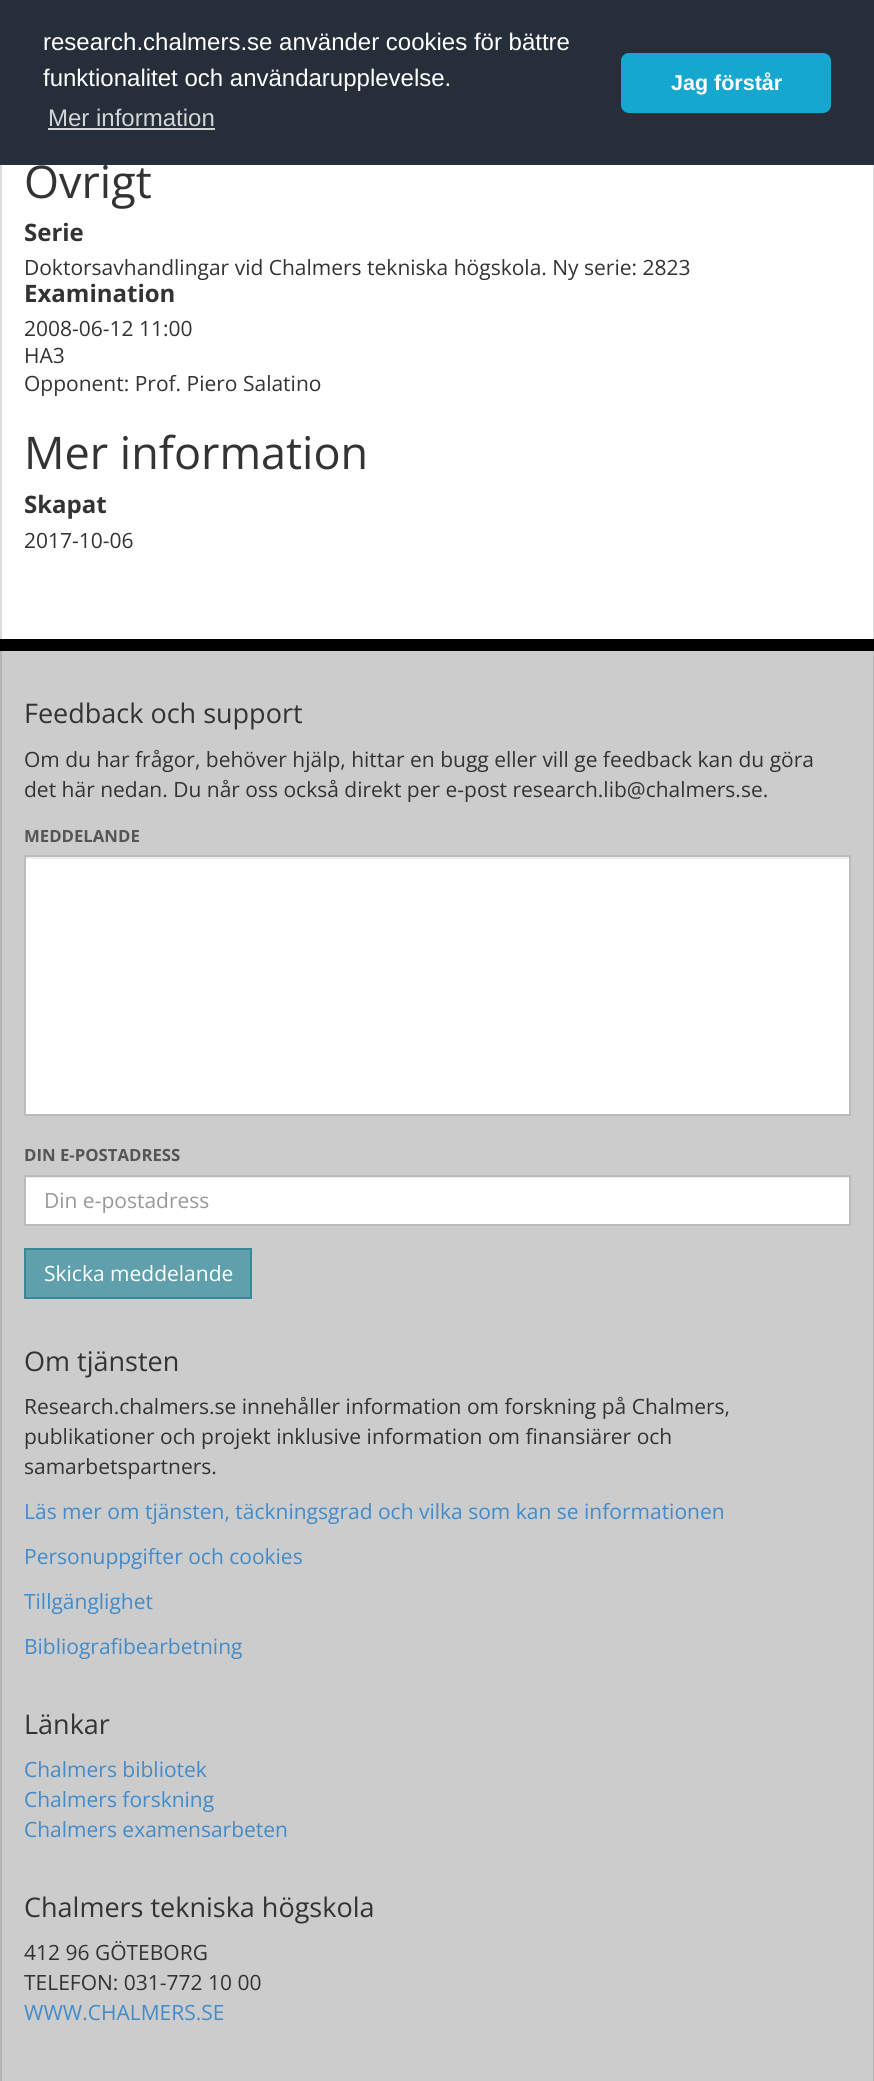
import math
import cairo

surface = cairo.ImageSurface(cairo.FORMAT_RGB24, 874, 2081)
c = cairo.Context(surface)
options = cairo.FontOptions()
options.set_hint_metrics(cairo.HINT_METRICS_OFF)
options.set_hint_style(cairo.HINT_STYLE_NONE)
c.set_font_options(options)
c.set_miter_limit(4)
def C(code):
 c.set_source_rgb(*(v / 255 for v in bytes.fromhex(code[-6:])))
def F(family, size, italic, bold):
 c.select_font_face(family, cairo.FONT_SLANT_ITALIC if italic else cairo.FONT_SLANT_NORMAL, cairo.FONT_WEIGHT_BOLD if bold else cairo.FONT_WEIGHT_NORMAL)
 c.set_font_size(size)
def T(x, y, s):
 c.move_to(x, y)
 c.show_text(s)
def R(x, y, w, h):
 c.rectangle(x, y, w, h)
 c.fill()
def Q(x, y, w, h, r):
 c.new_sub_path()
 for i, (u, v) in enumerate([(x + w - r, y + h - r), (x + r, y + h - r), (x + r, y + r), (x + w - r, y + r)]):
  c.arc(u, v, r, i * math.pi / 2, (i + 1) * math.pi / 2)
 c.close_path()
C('ffffff')
c.paint()
F('Open Sans',45,0,0)
C('333333')
T(24,198,'Övrigt')
C('252e39')
R(0,0,874,165)
F('Liberation Sans',24,0,0)
C('ffffff')
T(43,50,'research.chalmers.se använder cookies för bättre')
T(43,86,'funktionalitet och användarupplevelse.')
C('d3d5d7')
T(48,126,'Mer information')
R(48,128,167,2)
C('14a7d0')
Q(621,53,210,60,8)
c.fill()
F('Liberation Sans',21.5,0,1)
C('ffffff')
T(671,90,'Jag förstår')
C('dcdcdc')
R(873,165,1,474)
R(0,165,2,474)
F('Open Sans',24,0,1)
C('333333')
T(24,241,'Serie')
F('Open Sans',21,0,0)
T(24,275,'Doktorsavhandlingar vid Chalmers tekniska högskola. Ny serie: 2823')
F('Open Sans',24,0,1)
T(24,302,'Examination')
F('Open Sans',21,0,0)
T(24,336,'2008-06-12 11:00')
T(24,363,'HA3')
T(24,391,'Opponent: Prof. Piero Salatino')
F('Open Sans',45,0,0)
T(24,469,'Mer information')
F('Open Sans',24,0,1)
T(24,513,'Skapat')
F('Open Sans',21,0,0)
T(24,548,'2017-10-06')
C('cccccc')
R(2,651,871,1430)
C('000000')
R(0,639,874,12)
C('b4b4b4')
R(873,651,1,1430)
R(0,651,2,1430)
F('Open Sans',27,0,0)
C('333333')
T(24,723,'Feedback och support')
F('Open Sans',21,0,0)
T(24,767,'Om du har frågor, behöver hjälp, hittar en bugg eller vill ge feedback kan du göra')
T(24,797,'det här nedan. Du når oss också direkt per e-post research.lib@chalmers.se.')
F('Open Sans',16.75,0,1)
C('555555')
T(24,842,'MEDDELANDE')
C('ffffff')
R(26,859,823,255)
C('ececec')
R(26,857,823,2)
c.rectangle(25,856,825,259)
C('bbbbbb')
c.stroke()
C('555555')
T(24,1161,'DIN E-POSTADRESS')
C('ffffff')
R(26,1178,823,46)
C('ececec')
R(26,1177,823,1)
c.rectangle(25,1176,825,49)
C('bbbbbb')
c.stroke()
F('Open Sans',21,0,0)
C('999999')
T(44,1208,'Din e-postadress')
C('60a0ac')
c.rectangle(25,1249,226,49)
c.fill_preserve()
C('388898')
c.stroke()
C('ffffff')
T(44,1281,'Skicka meddelande')
F('Open Sans',27,0,0)
C('333333')
T(24,1371,'Om tjänsten')
F('Open Sans',21,0,0)
T(24,1414,'Research.chalmers.se innehåller information om forskning på Chalmers,')
T(24,1444,'publikationer och projekt inklusive information om finansiärer och')
T(24,1474,'samarbetspartners.')
C('428bca')
T(24,1519,'Läs mer om tjänsten, täckningsgrad och vilka som kan se informationen')
T(24,1564,'Personuppgifter och cookies')
T(24,1609,'Tillgänglighet')
T(24,1654,'Bibliografibearbetning')
F('Open Sans',27,0,0)
C('333333')
T(24,1734,'Länkar')
F('Open Sans',21,0,0)
C('428bca')
T(24,1777,'Chalmers bibliotek')
T(24,1807,'Chalmers forskning')
T(24,1837,'Chalmers examensarbeten')
F('Open Sans',27,0,0)
C('333333')
T(24,1917,'Chalmers tekniska högskola')
F('Open Sans',21,0,0)
T(24,1960,'412 96 GÖTEBORG')
T(24,1990,'TELEFON: 031-772 10 00')
C('428bca')
T(24,2020,'WWW.CHALMERS.SE')
surface.write_to_png('o.png')
